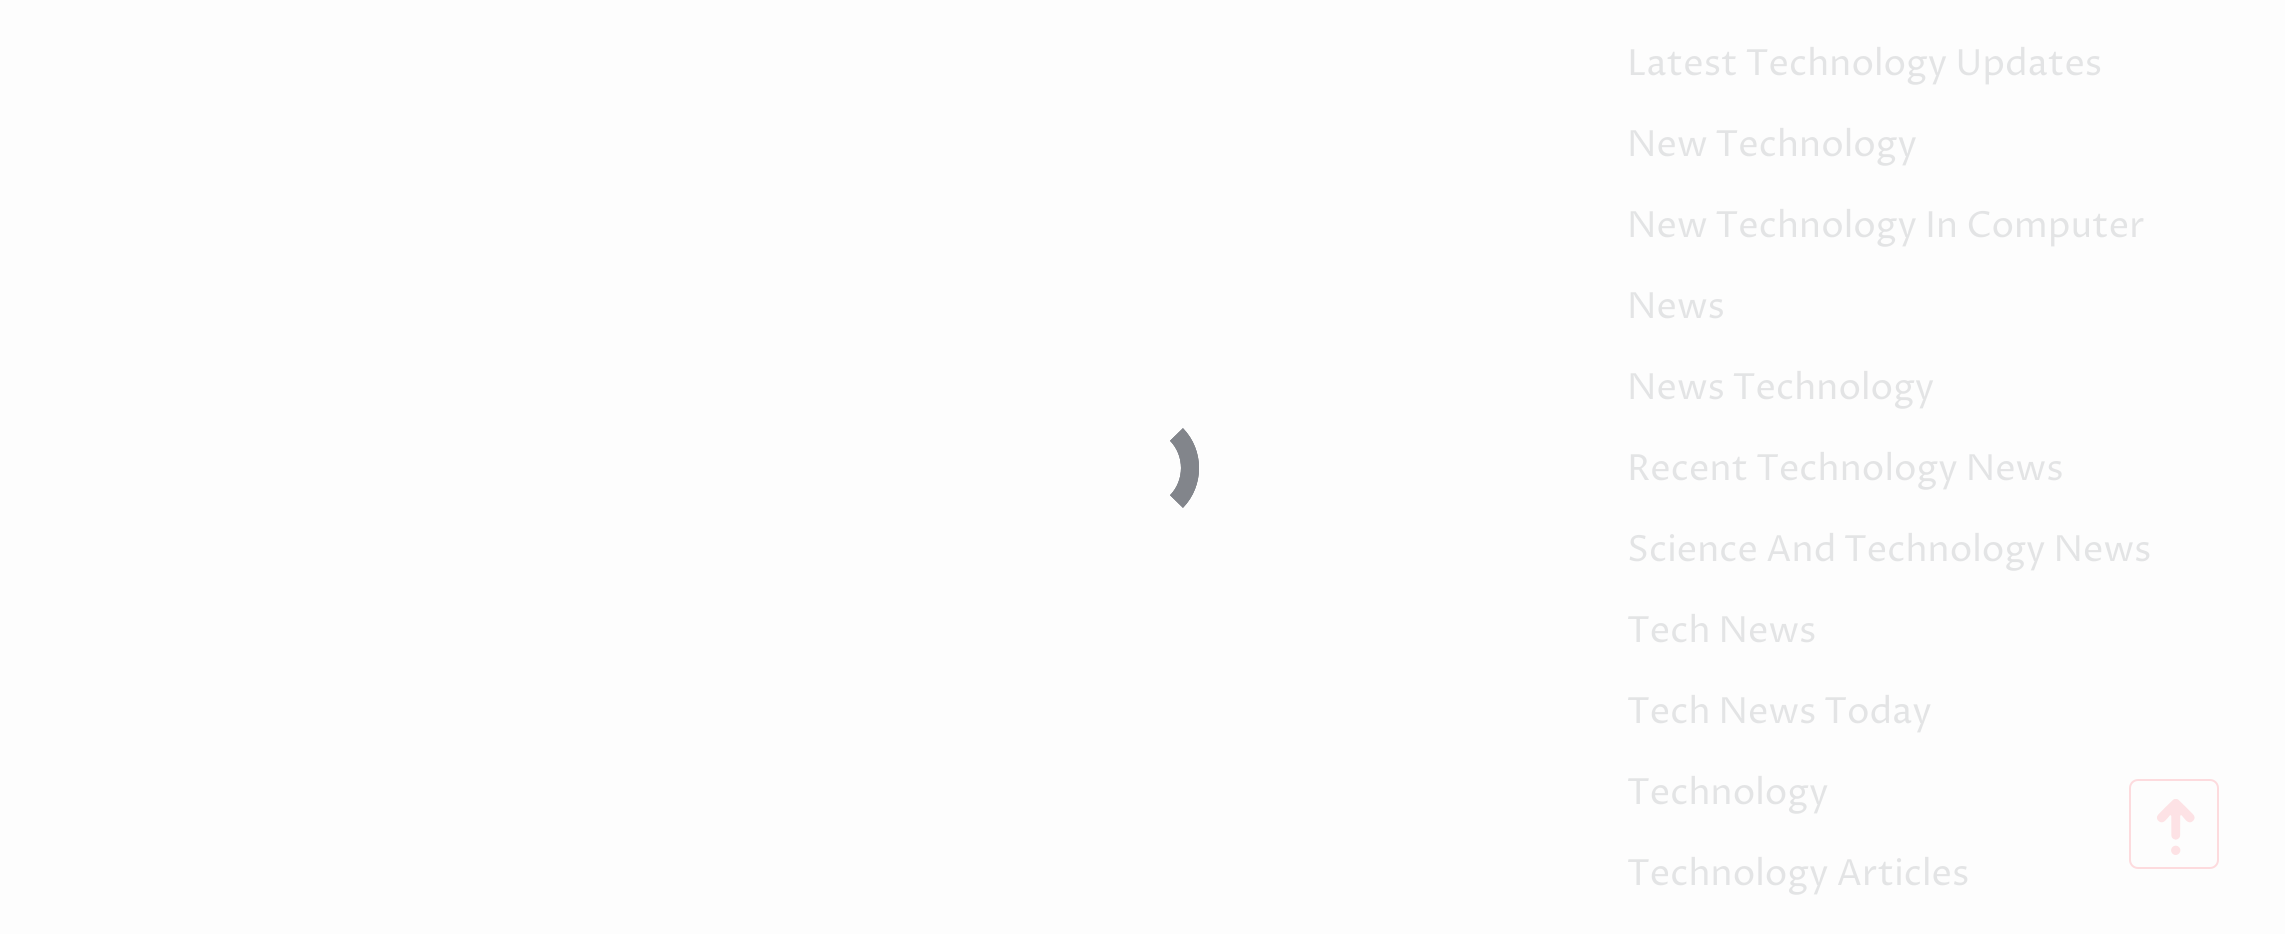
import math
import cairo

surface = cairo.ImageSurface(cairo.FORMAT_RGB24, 2285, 934)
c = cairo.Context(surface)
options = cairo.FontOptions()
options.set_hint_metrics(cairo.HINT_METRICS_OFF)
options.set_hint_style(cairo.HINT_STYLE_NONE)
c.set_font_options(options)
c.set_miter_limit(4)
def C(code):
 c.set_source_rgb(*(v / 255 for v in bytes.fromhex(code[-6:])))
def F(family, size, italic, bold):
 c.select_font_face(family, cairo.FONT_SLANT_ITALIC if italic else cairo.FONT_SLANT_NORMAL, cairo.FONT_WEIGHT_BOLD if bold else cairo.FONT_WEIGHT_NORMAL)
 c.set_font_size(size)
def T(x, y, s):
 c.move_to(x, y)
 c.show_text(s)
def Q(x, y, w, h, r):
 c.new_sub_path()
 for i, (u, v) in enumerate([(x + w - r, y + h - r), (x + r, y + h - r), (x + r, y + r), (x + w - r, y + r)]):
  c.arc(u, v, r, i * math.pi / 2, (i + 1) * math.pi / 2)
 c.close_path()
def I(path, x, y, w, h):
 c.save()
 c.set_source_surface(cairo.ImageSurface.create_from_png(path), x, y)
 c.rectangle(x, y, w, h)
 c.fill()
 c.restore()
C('fdfdfd')
c.paint()
c.new_path()
c.move_to(1176.5,434.5)
c.curve_to(1194.5,453,1194.5,483,1176.5,501.5)
C('82858b')
c.set_line_width(18)
c.stroke()
c.new_path()
c.move_to(1176.5,434.5)
c.curve_to(1194.5,453,1194.5,483,1176.5,501.5)
c.stroke()
c.new_path()
c.move_to(1176.5,434.5)
c.curve_to(1194.5,453,1194.5,483,1176.5,501.5)
c.stroke()
F('Proza Libre',36,0,0)
C('e3e4e5')
T(1627,75,'Latest Technology Updates')
T(1627,156,'New Technology')
T(1627,237,'New Technology In Computer')
T(1627,318,'News')
T(1627,399,'News Technology')
T(1627,480,'Recent Technology News')
T(1627,561,'Science And Technology News')
T(1627,642,'Tech News')
T(1627,723,'Tech News Today')
T(1627,804,'Technology')
T(1627,885,'Technology Articles')
Q(2130,780,88,88,8)
C('fddbde')
c.set_line_width(2)
c.stroke()
I('1.png',2156,799,39,56)
surface.write_to_png('o.png')
